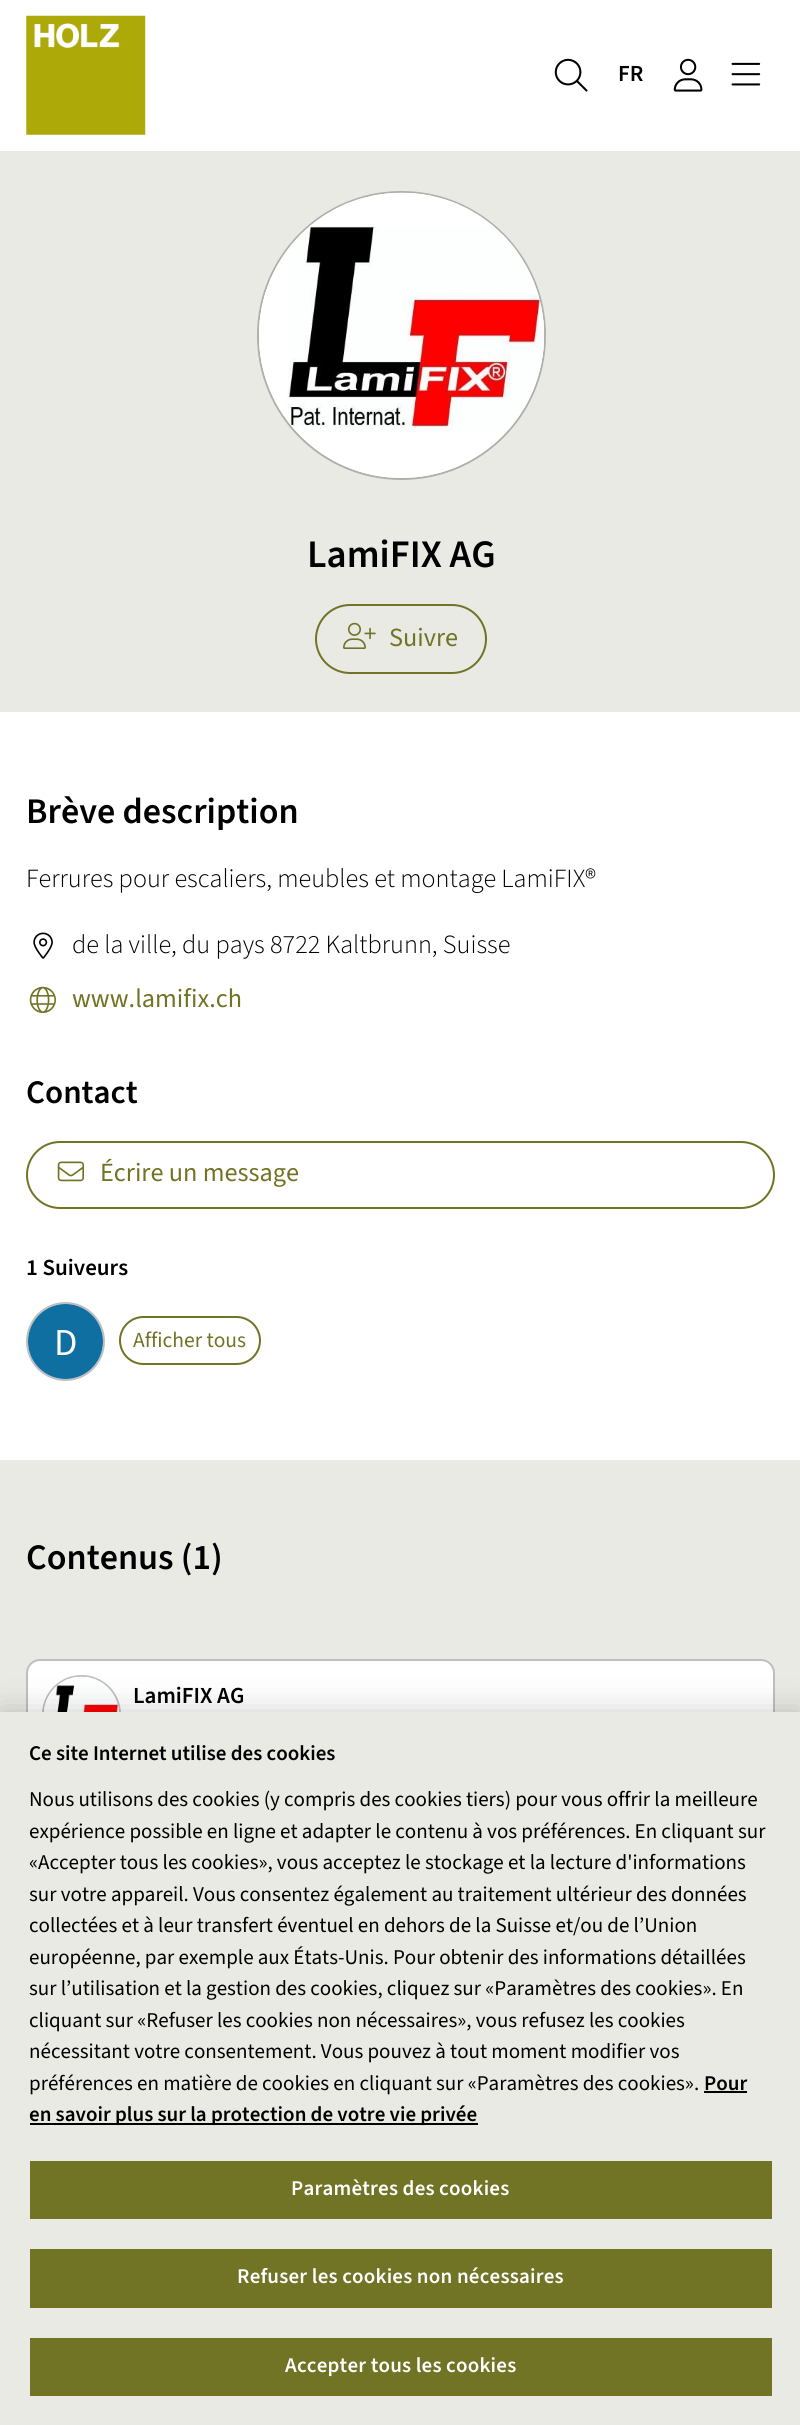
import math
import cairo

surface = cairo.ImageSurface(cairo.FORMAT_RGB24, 800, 2425)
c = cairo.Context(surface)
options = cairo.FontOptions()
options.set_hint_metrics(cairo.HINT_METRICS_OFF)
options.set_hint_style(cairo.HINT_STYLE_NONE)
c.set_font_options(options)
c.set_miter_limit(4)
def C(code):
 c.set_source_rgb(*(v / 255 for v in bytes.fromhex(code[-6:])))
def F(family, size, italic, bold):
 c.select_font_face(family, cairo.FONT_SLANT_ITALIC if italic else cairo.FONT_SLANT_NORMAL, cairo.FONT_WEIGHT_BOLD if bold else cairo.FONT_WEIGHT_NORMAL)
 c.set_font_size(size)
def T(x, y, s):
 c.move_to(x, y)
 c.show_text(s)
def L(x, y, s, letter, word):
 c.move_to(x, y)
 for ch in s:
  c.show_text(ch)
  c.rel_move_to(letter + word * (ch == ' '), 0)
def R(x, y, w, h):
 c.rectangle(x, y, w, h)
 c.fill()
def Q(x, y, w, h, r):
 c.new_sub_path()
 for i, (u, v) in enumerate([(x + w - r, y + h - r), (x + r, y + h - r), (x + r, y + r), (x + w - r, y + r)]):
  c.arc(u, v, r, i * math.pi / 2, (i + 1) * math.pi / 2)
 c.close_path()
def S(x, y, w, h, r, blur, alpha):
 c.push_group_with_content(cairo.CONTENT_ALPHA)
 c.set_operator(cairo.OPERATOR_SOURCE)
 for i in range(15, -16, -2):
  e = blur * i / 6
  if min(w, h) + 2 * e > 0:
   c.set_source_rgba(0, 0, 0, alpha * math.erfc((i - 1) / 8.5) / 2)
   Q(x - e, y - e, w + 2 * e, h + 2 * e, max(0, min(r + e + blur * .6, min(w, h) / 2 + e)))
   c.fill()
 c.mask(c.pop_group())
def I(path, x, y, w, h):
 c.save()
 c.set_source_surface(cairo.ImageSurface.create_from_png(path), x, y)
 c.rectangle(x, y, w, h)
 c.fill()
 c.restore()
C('ffffff')
c.paint()
I('1.png',26,15,120,120)
I('2.png',554,58,34,34)
F('Source Sans 3 ExtraLight',23,0,0)
C('000000')
T(618,81,'FR')
I('3.png',673,58,30,34)
I('4.png',731,62,30,24)
C('e9eae4')
R(0,151,800,561)
c.arc(401.5,335.5,143.5,0,2 * math.pi)
C('afb0ab')
c.stroke()
C('ffffff')
c.arc(401.5,335.5,142.5,0,2 * math.pi)
c.fill()
I('5.png',259,192,286,285)
F('Source Sans 3 ExtraLight',39,0,0)
C('000000')
T(307,567,'LamiFIX AG')
Q(316,605,170,68,34)
C('717325')
c.stroke()
I('6.png',343,622,33,27)
F('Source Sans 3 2 ExtraLight',26.25,0,0)
T(389,646,'Suivre')
F('Source Sans 3 ExtraLight',36,0,0)
C('000000')
T(26,823,'Brève description')
F('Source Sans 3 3 ExtraLight',26.25,0,0)
T(26,887,'Ferrures pour escaliers, meubles et montage LamiFIX®')
I('7.png',33,932,20,27)
T(72,953,'de la ville, du pays 8722 Kaltbrunn, Suisse')
I('8.png',29,986,27,27)
F('Source Sans 3 2 ExtraLight',26.25,0,0)
C('717325')
T(72,1007,'www.lamifix.ch')
F('Source Sans 3 ExtraLight',33,0,0)
C('000000')
T(26,1103,'Contact')
Q(27,1142,747,66,33)
C('717325')
c.stroke()
I('9.png',57,1161,27,21)
F('Source Sans 3 2 ExtraLight',26.25,0,0)
T(100,1181,'Écrire un message')
F('Source Sans 3 ExtraLight',23,0,0)
C('000000')
T(26,1275,'1 Suiveurs')
c.new_path()
c.arc(65.5,1341.5,38.5,0,2 * math.pi)
C('bfbfbf')
c.stroke()
C('106fa1')
c.arc(65.5,1341.5,37.5,0,2 * math.pi)
c.fill()
F('Source Sans 3 2 ExtraLight',38,0,0)
C('ffffff')
T(54,1355,'D')
Q(120,1317,140,47,23.5)
C('717325')
c.stroke()
F('Source Sans 3 2 ExtraLight',21.5,0,0)
T(133,1347,'Afficher tous')
C('e9eae4')
R(0,1460,800,252)
F('Source Sans 3 ExtraLight',36,0,0)
C('000000')
T(26,1569,'Contenus (1)')
C('ffffff')
Q(26,1659,749,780,14)
c.fill()
Q(27,1660,747,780,13)
c.set_source_rgba(0,0,0,0.25)
c.stroke()
c.arc(81.5,1714.5,38.5,0,2 * math.pi)
C('bfbfbf')
c.stroke()
I('10.png',44,1676,75,36)
F('Source Sans 3 ExtraLight',23,0,0)
C('000000')
T(133,1703,'LamiFIX AG')
C('000000')
S(0,1712,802,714,0,16,.2)
C('e9eae4')
R(0,1712,800,713)
F('Source Sans 3 ExtraLight',21,0,0)
C('000000')
T(29,1760,'Ce site Internet utilise des cookies')
F('Source Sans 3 2 ExtraLight',21,0,0)
T(29,1806,'Nous utilisons des cookies (y compris des cookies tiers) pour vous offrir la meilleure')
T(29,1838,'expérience possible en ligne et adapter le contenu à vos préférences. En cliquant sur')
T(29,1869,'«Accepter tous les cookies», vous acceptez le stockage et la lecture d\'informations')
T(29,1901,'sur votre appareil. Vous consentez également au traitement ultérieur des données')
T(29,1932,'collectées et à leur transfert éventuel en dehors de la Suisse et/ou de l’Union')
T(29,1964,'européenne, par exemple aux États-Unis. Pour obtenir des informations détaillées')
T(29,1995,'sur l’utilisation et la gestion des cookies, cliquez sur «Paramètres des cookies». En')
T(29,2027,'cliquant sur «Refuser les cookies non nécessaires», vous refusez les cookies')
T(29,2058,'nécessitant votre consentement. Vous pouvez à tout moment modifier vos')
T(29,2090,'préférences en matière de cookies en cliquant sur «Paramètres des cookies».')
F('Source Sans 3 ExtraLight',21,0,0)
T(704,2090,'Pour')
R(704,2091,43,2)
R(30,2123,448,2)
T(29,2121,'en savoir plus sur la protection de votre vie privée')
C('717325')
R(30,2161,742,58)
C('ffffff')
L(291,2195,'Paramètres des cookies',.2,0)
C('717325')
R(30,2249,742,59)
C('ffffff')
L(237,2283,'Refuser les cookies non nécessaires',.2,0)
C('717325')
R(30,2338,742,58)
C('ffffff')
L(285,2372,'Accepter tous les cookies',.2,0)
surface.write_to_png('o.png')
